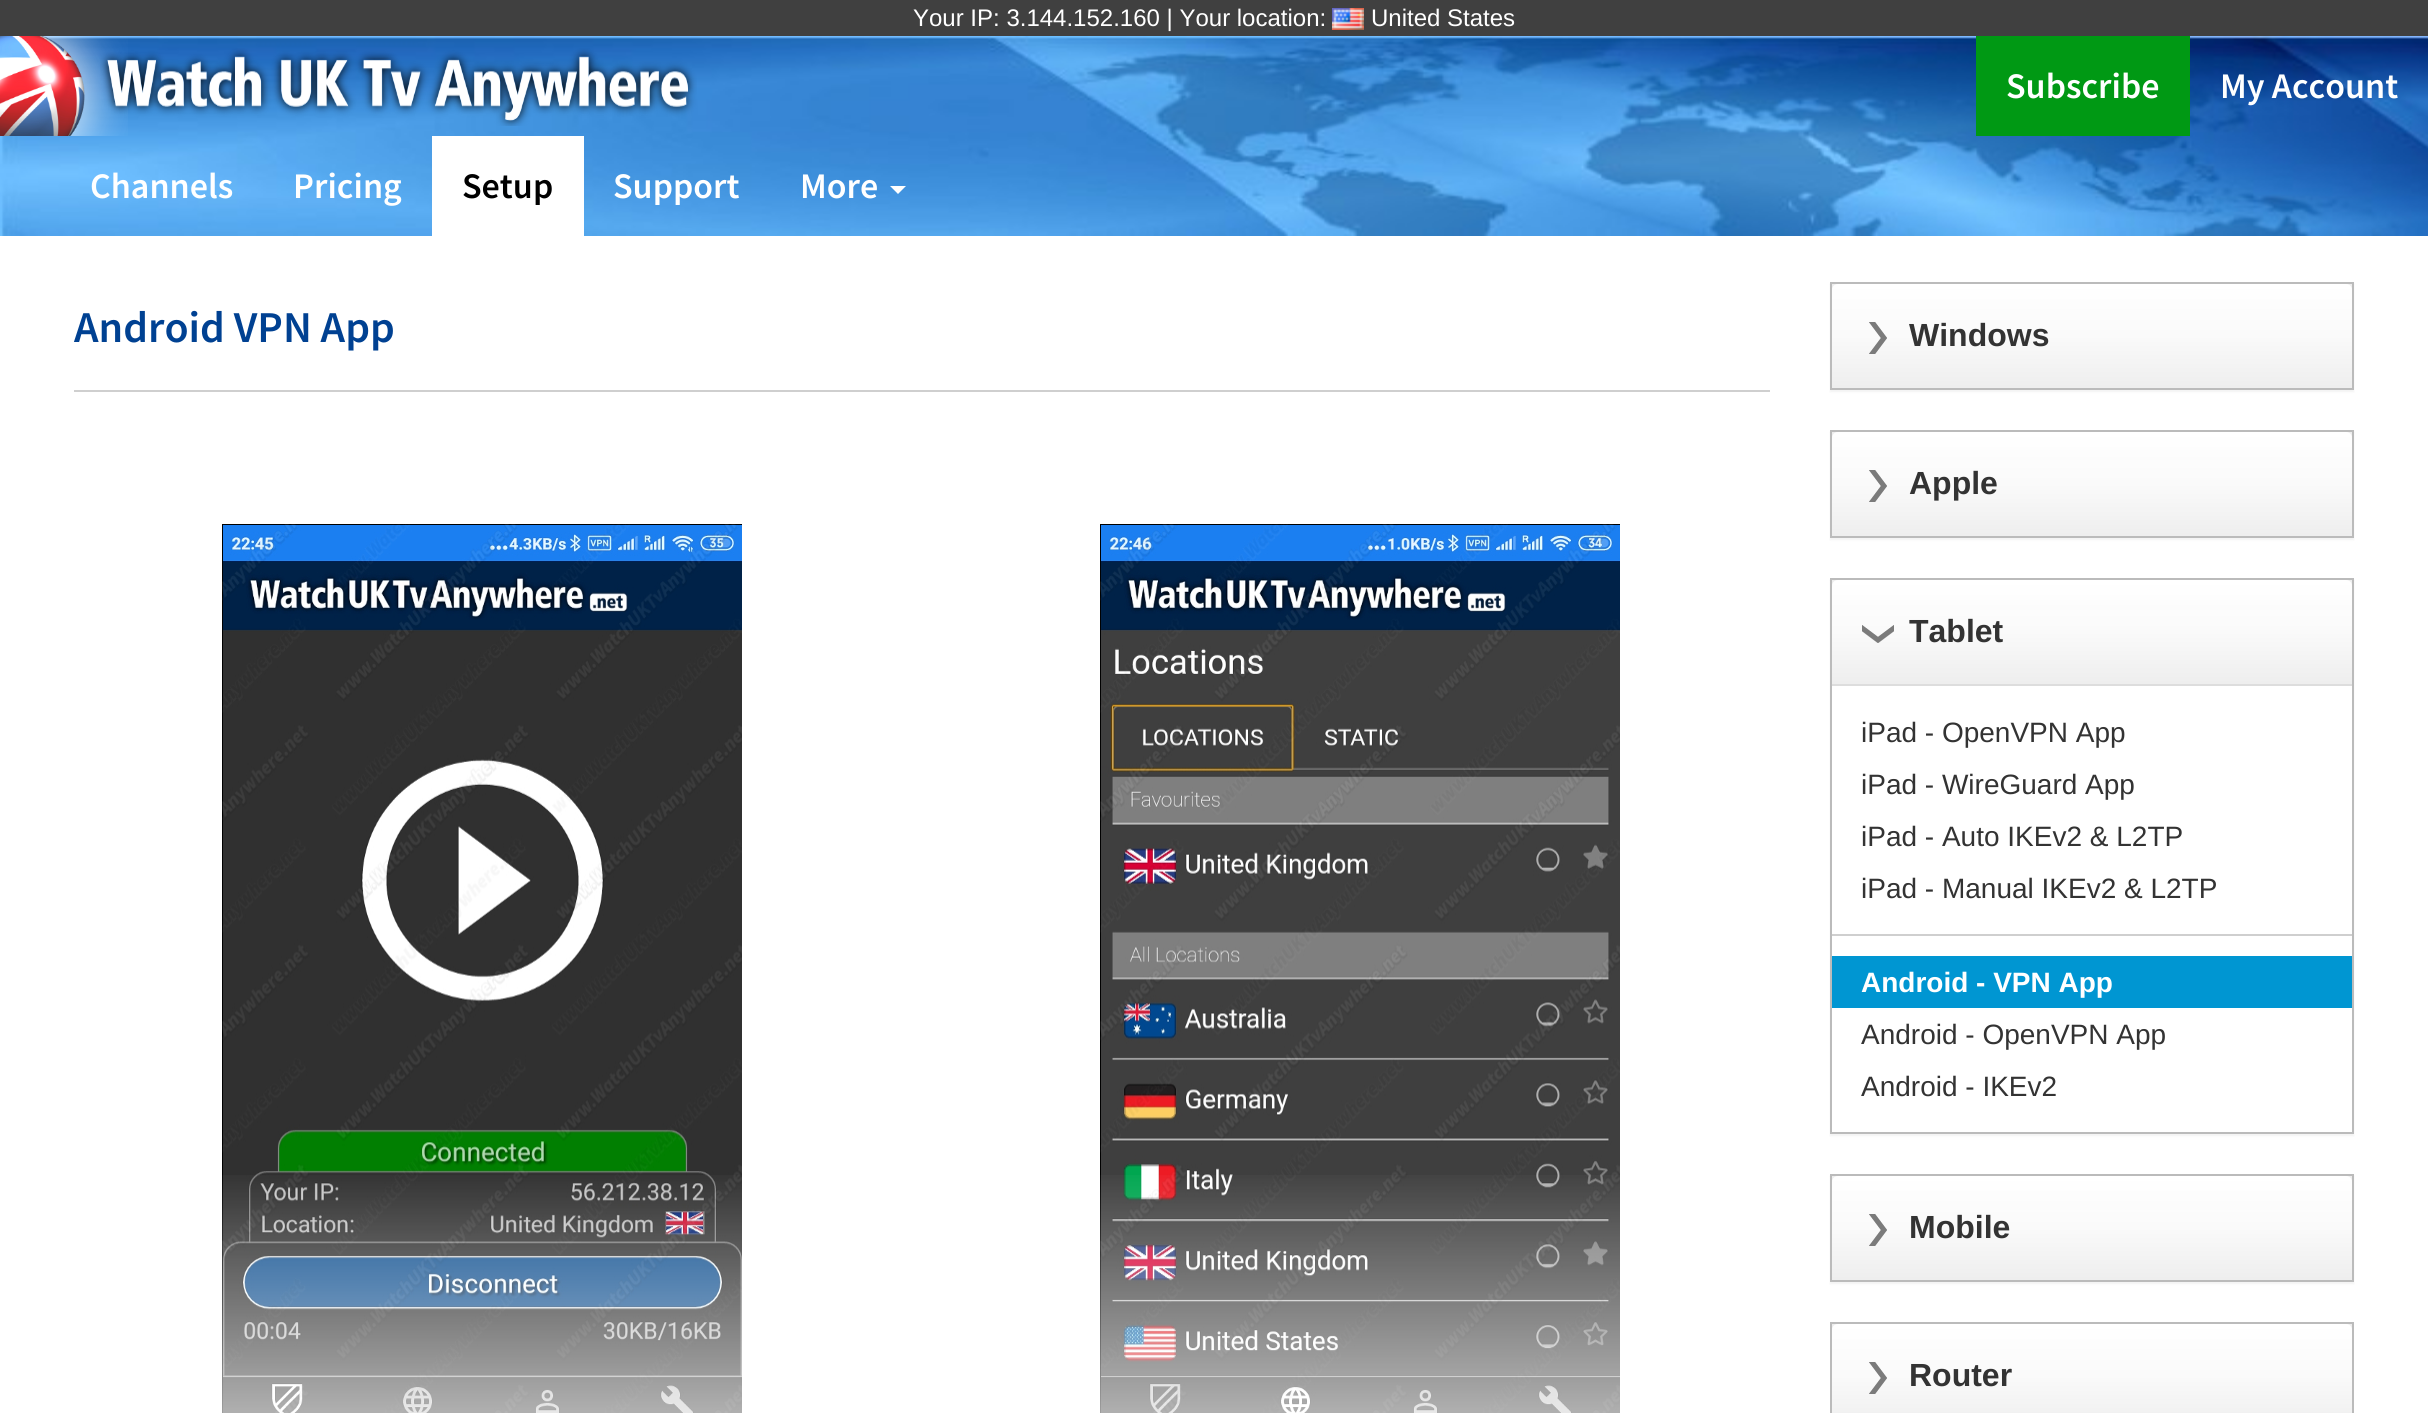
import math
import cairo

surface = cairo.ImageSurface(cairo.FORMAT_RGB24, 2428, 1413)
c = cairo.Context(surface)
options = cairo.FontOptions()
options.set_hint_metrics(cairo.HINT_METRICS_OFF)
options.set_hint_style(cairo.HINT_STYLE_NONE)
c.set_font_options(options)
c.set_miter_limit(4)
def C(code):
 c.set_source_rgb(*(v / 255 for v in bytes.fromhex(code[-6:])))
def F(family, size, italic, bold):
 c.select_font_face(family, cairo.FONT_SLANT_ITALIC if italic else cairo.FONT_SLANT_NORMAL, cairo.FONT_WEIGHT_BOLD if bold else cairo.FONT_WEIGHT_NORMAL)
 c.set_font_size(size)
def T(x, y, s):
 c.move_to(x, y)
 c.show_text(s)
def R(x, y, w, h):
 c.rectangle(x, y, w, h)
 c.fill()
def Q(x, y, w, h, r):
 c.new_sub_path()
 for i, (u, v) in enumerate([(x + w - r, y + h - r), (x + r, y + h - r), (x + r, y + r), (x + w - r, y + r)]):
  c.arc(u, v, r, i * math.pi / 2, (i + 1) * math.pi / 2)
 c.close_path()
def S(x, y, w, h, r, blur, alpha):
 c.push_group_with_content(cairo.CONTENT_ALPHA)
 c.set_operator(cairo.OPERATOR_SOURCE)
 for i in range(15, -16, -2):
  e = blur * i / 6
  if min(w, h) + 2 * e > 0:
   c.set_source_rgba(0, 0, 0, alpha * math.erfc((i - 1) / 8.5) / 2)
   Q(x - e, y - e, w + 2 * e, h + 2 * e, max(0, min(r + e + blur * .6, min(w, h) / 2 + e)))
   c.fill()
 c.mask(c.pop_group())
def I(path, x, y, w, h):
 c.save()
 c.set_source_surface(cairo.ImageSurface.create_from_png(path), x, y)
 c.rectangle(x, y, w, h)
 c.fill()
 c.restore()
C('ffffff')
c.paint()
C('404040')
R(0,0,2428,36)
F('Liberation Sans',24,0,0)
C('ffffff')
T(913,26,'Your IP: 3.144.152.160 | Your location:')
I('1.png',1332,8,32,22)
T(1371,26,'United States')
I('2.png',0,36,2428,200)
I('3.png',0,36,128,100)
I('4.png',100,48,597,78)
C('009914')
R(1976,36,214,100)
F('Source Sans Pro SemiBold',36,0,0)
C('ffffff')
T(2006,98,'Subscribe')
T(2220,98,'My Account')
T(90,198,'Channels')
T(293,198,'Pricing')
R(432,136,152,100)
C('000000')
T(462,198,'Setup')
C('ffffff')
T(613,198,'Support')
T(800,198,'More')
c.new_path()
c.move_to(890,186)
c.line_to(906,186)
c.line_to(898,194)
c.close_path()
c.fill()
F('Source Sans Pro SemiBold',44,0,0)
C('004192')
T(74,342,'Android VPN App')
C('cfcfcf')
R(74,390,1696,2)
I('5.png',222,524,520,889)
I('6.png',1100,524,520,889)
gradient = cairo.LinearGradient(964,1166,964,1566)
gradient.add_color_stop_rgba(0,1,1,1,0)
gradient.add_color_stop_rgba(1,1,1,1,1)
c.set_source(gradient)
R(222,1175,1398,238)
C('000000')
S(1830,284,524,108,0,1,.05)
C('eeeeee')
R(1832,284,520,6)
c.rectangle(1831,283,522,106)
C('bbbbbb')
c.stroke()
gradient = cairo.LinearGradient(2092,284,2092,388)
gradient.add_color_stop_rgba(0,1,1,1,1)
gradient.add_color_stop_rgba(.5,0.98,0.98,0.98,1)
gradient.add_color_stop_rgba(1,0.933,0.933,0.933,1)
c.set_source(gradient)
c.new_path()
c.move_to(1838,284)
c.line_to(2346,284)
c.curve_to(2349.5,284,2352,286.5,2352,290)
c.line_to(2352,388)
c.line_to(1832,388)
c.line_to(1832,290)
c.curve_to(1832,286.5,1834.5,284,1838,284)
c.close_path()
c.fill()
I('7.png',1869,322,18,32)
F('Liberation Sans',32,0,1)
C('333333')
T(1909,346,'Windows')
C('000000')
S(1830,432,524,108,0,1,.05)
C('eeeeee')
R(1832,432,520,6)
c.rectangle(1831,431,522,106)
C('bbbbbb')
c.stroke()
gradient = cairo.LinearGradient(2092,432,2092,536)
gradient.add_color_stop_rgba(0,1,1,1,1)
gradient.add_color_stop_rgba(.5,0.98,0.98,0.98,1)
gradient.add_color_stop_rgba(1,0.933,0.933,0.933,1)
c.set_source(gradient)
c.new_path()
c.move_to(1838,432)
c.line_to(2346,432)
c.curve_to(2349.5,432,2352,434.5,2352,438)
c.line_to(2352,536)
c.line_to(1832,536)
c.line_to(1832,438)
c.curve_to(1832,434.5,1834.5,432,1838,432)
c.close_path()
c.fill()
I('7.png',1869,470,18,32)
C('333333')
T(1909,494,'Apple')
C('000000')
S(1830,580,524,556,0,1,.05)
C('eeeeee')
R(1832,580,520,6)
c.rectangle(1831,579,522,554)
C('bbbbbb')
c.stroke()
gradient = cairo.LinearGradient(2092,580,2092,684)
gradient.add_color_stop_rgba(0,1,1,1,1)
gradient.add_color_stop_rgba(.5,0.98,0.98,0.98,1)
gradient.add_color_stop_rgba(1,0.933,0.933,0.933,1)
c.set_source(gradient)
c.new_path()
c.move_to(1838,580)
c.line_to(2346,580)
c.curve_to(2349.5,580,2352,582.5,2352,586)
c.line_to(2352,684)
c.line_to(1832,684)
c.line_to(1832,586)
c.curve_to(1832,582.5,1834.5,580,1838,580)
c.close_path()
c.fill()
I('8.png',1862,625,32,18)
C('333333')
T(1909,642,'Tablet')
C('ffffff')
R(1832,686,520,446)
C('dddddd')
R(1832,684,520,2)
F('Liberation Sans',28,0,0)
C('333333')
T(1861,742,'iPad - OpenVPN App')
T(1861,794,'iPad - WireGuard App')
T(1861,846,'iPad - Auto IKEv2 & L2TP')
T(1861,898,'iPad - Manual IKEv2 & L2TP')
C('cfcfcf')
R(1832,934,520,2)
C('0096d2')
R(1832,956,520,52)
F('Liberation Sans',28,0,1)
C('ffffff')
T(1861,992,'Android - VPN App')
F('Liberation Sans',28,0,0)
C('333333')
T(1861,1044,'Android - OpenVPN App')
T(1861,1096,'Android - IKEv2')
C('000000')
S(1830,1176,524,108,0,1,.05)
C('eeeeee')
R(1832,1176,520,6)
c.rectangle(1831,1175,522,106)
C('bbbbbb')
c.stroke()
gradient = cairo.LinearGradient(2092,1176,2092,1280)
gradient.add_color_stop_rgba(0,1,1,1,1)
gradient.add_color_stop_rgba(.5,0.98,0.98,0.98,1)
gradient.add_color_stop_rgba(1,0.933,0.933,0.933,1)
c.set_source(gradient)
c.new_path()
c.move_to(1838,1176)
c.line_to(2346,1176)
c.curve_to(2349.5,1176,2352,1178.5,2352,1182)
c.line_to(2352,1280)
c.line_to(1832,1280)
c.line_to(1832,1182)
c.curve_to(1832,1178.5,1834.5,1176,1838,1176)
c.close_path()
c.fill()
I('7.png',1869,1214,18,32)
F('Liberation Sans',32,0,1)
C('333333')
T(1909,1238,'Mobile')
C('eeeeee')
R(1832,1324,520,6)
c.rectangle(1831,1323,522,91)
C('bbbbbb')
c.stroke()
gradient = cairo.LinearGradient(2092,1324,2092,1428)
gradient.add_color_stop_rgba(0,1,1,1,1)
gradient.add_color_stop_rgba(.5,0.98,0.98,0.98,1)
gradient.add_color_stop_rgba(1,0.933,0.933,0.933,1)
c.set_source(gradient)
c.new_path()
c.move_to(1838,1324)
c.line_to(2346,1324)
c.curve_to(2349.5,1324,2352,1326.5,2352,1330)
c.line_to(2352,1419)
c.line_to(1832,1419)
c.line_to(1832,1330)
c.curve_to(1832,1326.5,1834.5,1324,1838,1324)
c.close_path()
c.fill()
I('7.png',1869,1362,18,32)
C('333333')
T(1909,1386,'Router')
surface.write_to_png('o.png')
